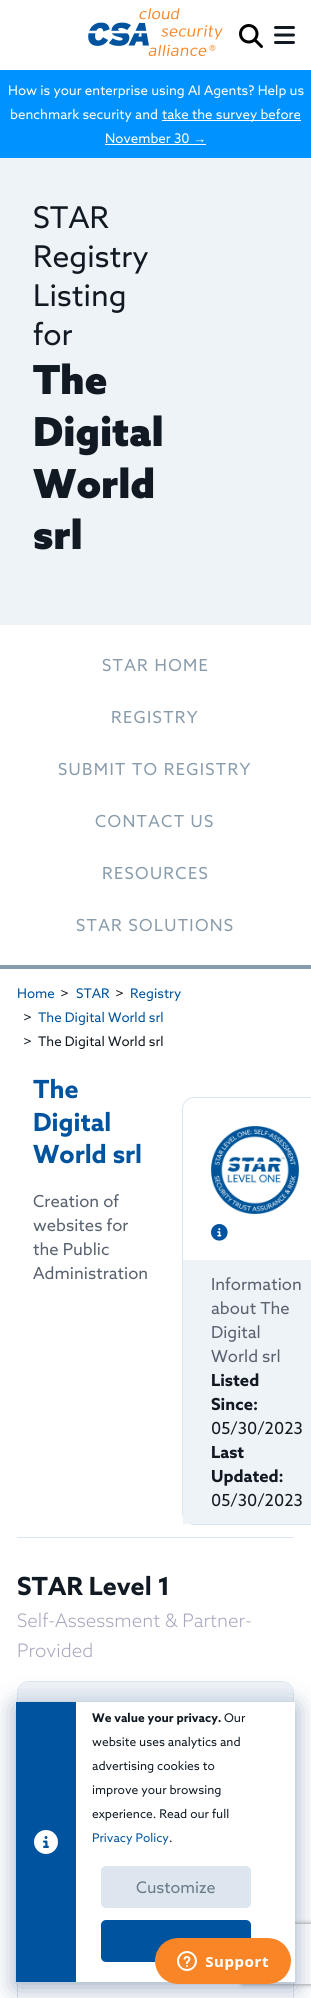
import math
import cairo

surface = cairo.ImageSurface(cairo.FORMAT_RGB24, 311, 1998)
c = cairo.Context(surface)
options = cairo.FontOptions()
options.set_hint_metrics(cairo.HINT_METRICS_OFF)
options.set_hint_style(cairo.HINT_STYLE_NONE)
c.set_font_options(options)
c.set_miter_limit(4)
def C(code):
 c.set_source_rgb(*(v / 255 for v in bytes.fromhex(code[-6:])))
def F(family, size, italic, bold):
 c.select_font_face(family, cairo.FONT_SLANT_ITALIC if italic else cairo.FONT_SLANT_NORMAL, cairo.FONT_WEIGHT_BOLD if bold else cairo.FONT_WEIGHT_NORMAL)
 c.set_font_size(size)
def T(x, y, s):
 c.move_to(x, y)
 c.show_text(s)
def L(x, y, s, letter, word):
 c.move_to(x, y)
 for ch in s:
  c.show_text(ch)
  c.rel_move_to(letter + word * (ch == ' '), 0)
def R(x, y, w, h):
 c.rectangle(x, y, w, h)
 c.fill()
def Q(x, y, w, h, r):
 c.new_sub_path()
 for i, (u, v) in enumerate([(x + w - r, y + h - r), (x + r, y + h - r), (x + r, y + r), (x + w - r, y + r)]):
  c.arc(u, v, r, i * math.pi / 2, (i + 1) * math.pi / 2)
 c.close_path()
def S(x, y, w, h, r, blur, alpha):
 c.push_group_with_content(cairo.CONTENT_ALPHA)
 c.set_operator(cairo.OPERATOR_SOURCE)
 for i in range(15, -16, -2):
  e = blur * i / 6
  if min(w, h) + 2 * e > 0:
   c.set_source_rgba(0, 0, 0, alpha * math.erfc((i - 1) / 8.5) / 2)
   Q(x - e, y - e, w + 2 * e, h + 2 * e, max(0, min(r + e + blur * .6, min(w, h) / 2 + e)))
   c.fill()
 c.mask(c.pop_group())
def I(path, x, y, w, h):
 c.save()
 c.set_source_surface(cairo.ImageSurface.create_from_png(path), x, y)
 c.rectangle(x, y, w, h)
 c.fill()
 c.restore()
C('ffffff')
c.paint()
I('1.png',88,8,135,48)
I('2.png',239,24,24,24)
I('3.png',274,26,21,18)
C('0093ff')
R(0,70,311,88)
F('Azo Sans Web',13.3,0,0)
C('ffffff')
T(8,95,'How is your enterprise using AI Agents? Help us')
T(10,119,'benchmark security and')
R(162,120,139,1)
T(162,119,'take the survey before')
T(105,143,'November 30')
F('Liberation Sans',13.3,0,0)
T(193,143,'→')
R(105,144,101,1)
C('eef3f8')
R(0,158,311,467)
F('Azo Sans Web',30,0,0)
C('111a23')
T(33,228,'STAR')
T(33,267,'Registry')
T(33,306,'Listing')
T(33,345,'for')
F('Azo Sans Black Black',40,0,0)
T(33,394,'The')
T(33,446,'Digital')
T(33,498,'World')
T(33,549,'srl')
F('Azo Sans Web',16.6,0,0)
C('899cac')
L(102,671,'STAR HOME',1.3,0)
L(111,723,'REGISTRY',1.3,0)
L(58,775,'SUBMIT TO REGISTRY',1.3,0)
L(95,827,'CONTACT US',1.3,0)
L(102,879,'RESOURCES',1.3,0)
L(76,931,'STAR SOLUTIONS',1.3,0)
R(0,965,311,4)
F('Azo Sans Web',13.3,0,0)
C('00549f')
T(17,998,'Home')
C('111a23')
T(60,998,'>')
C('00549f')
T(76,998,'STAR')
C('111a23')
T(115,998,'>')
C('00549f')
T(130,998,'Registry')
C('111a23')
T(23,1022,'>')
C('00549f')
T(38,1022,'The Digital World srl')
C('111a23')
T(23,1046,'>')
T(38,1046,'The Digital World srl')
F('Azo Sans Web',25,0,1)
C('00549f')
T(33,1098,'The')
T(33,1131,'Digital')
T(33,1163,'World srl')
F('Azo Sans Web',16.6,0,0)
C('59626f')
T(33,1207,'Creation of')
T(33,1231,'websites for')
T(33,1255,'the Public')
T(33,1279,'Administration')
Q(182.5,1097.5,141,427,11.5)
C('dde6ef')
c.set_line_width(1)
c.stroke()
I('4.png',211,1126,88,88)
I('5.png',211,1224,17,17)
C('eef3f8')
R(183,1260,128,264)
C('59626f')
T(211,1290,'Information')
T(211,1314,'about The')
T(211,1338,'Digital')
T(211,1362,'World srl')
F('Azo Sans Web',16.6,0,1)
C('111a23')
T(211,1386,'Listed')
T(211,1410,'Since:')
F('Azo Sans Web',16.6,0,0)
T(211,1434,'05/30/2023')
F('Azo Sans Web',16.6,0,1)
T(211,1458,'Last')
T(211,1482,'Updated:')
F('Azo Sans Web',16.6,0,0)
T(211,1506,'05/30/2023')
C('dde6ef')
R(17,1537,277,1)
F('Azo Sans Web',25,0,1)
C('111a23')
T(17,1595,'STAR Level 1')
F('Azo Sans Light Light',18.6,0,0)
C('a6a6bf')
T(17,1627,'Self-Assessment & Partner-')
T(17,1657,'Provided')
Q(17.5,1681.5,276,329,11.5)
C('dde6ef')
c.stroke()
C('eef3f8')
c.new_path()
c.move_to(29,1682)
c.line_to(282,1682)
c.curve_to(288,1682,293,1687,293,1693)
c.line_to(293,1730)
c.line_to(18,1730)
c.line_to(18,1693)
c.curve_to(18,1687,23,1682,29,1682)
c.close_path()
c.fill()
C('002a66')
S(16,1707,279,280,0,12.5,.4)
c.save()
c.set_fill_rule(cairo.FILL_RULE_EVEN_ODD)
c.new_path()
c.move_to(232,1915)
c.line_to(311,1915)
c.line_to(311,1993)
c.line_to(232,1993)
c.close_path()
c.move_to(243,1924)
c.line_to(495,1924)
c.curve_to(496,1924,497,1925,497,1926)
c.line_to(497,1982)
c.curve_to(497,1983,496,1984,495,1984)
c.line_to(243,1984)
c.curve_to(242,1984,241,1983,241,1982)
c.line_to(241,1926)
c.curve_to(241,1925,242,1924,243,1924)
c.close_path()
c.clip()
C('808080')
S(241,1924,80,60,2,2.5,1)
c.restore()
C('ffffff')
R(76,1702,219,280)
C('00549f')
R(16,1702,60,280)
I('6.png',34,1830,24,24)
F('Azo Sans Web',12,0,1)
C('111a23')
T(92,1722,'We value your privacy.')
F('Azo Sans Web',12,0,0)
T(224,1722,'Our')
T(92,1746,'website uses analytics and')
T(92,1770,'advertising cookies to')
T(92,1794,'improve your browsing')
T(92,1818,'experience. Read our full')
C('00549f')
T(92,1842,'Privacy Policy')
C('111a23')
T(169,1842,'.')
C('dde6ef')
Q(101,1866,150,42,5)
c.fill()
F('Azo Sans Web',16,0,0)
C('697a89')
T(136,1893,'Customize')
C('00549f')
Q(101,1920,150,42,5)
c.fill()
I('7.png',155,1938,136,46)
surface.write_to_png('o.png')
